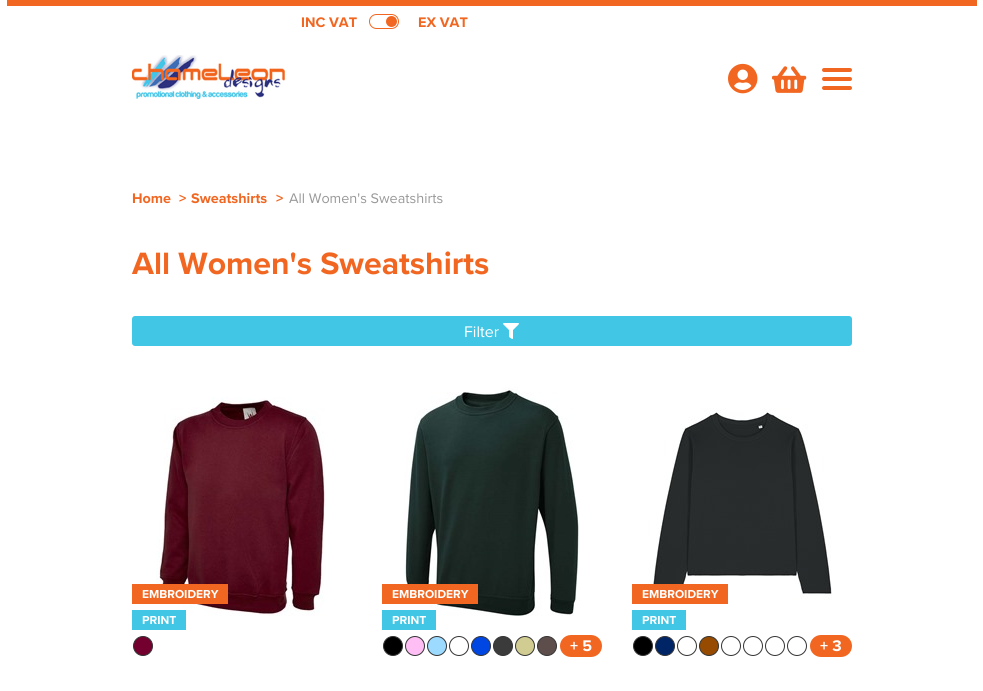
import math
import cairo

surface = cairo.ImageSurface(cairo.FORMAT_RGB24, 983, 691)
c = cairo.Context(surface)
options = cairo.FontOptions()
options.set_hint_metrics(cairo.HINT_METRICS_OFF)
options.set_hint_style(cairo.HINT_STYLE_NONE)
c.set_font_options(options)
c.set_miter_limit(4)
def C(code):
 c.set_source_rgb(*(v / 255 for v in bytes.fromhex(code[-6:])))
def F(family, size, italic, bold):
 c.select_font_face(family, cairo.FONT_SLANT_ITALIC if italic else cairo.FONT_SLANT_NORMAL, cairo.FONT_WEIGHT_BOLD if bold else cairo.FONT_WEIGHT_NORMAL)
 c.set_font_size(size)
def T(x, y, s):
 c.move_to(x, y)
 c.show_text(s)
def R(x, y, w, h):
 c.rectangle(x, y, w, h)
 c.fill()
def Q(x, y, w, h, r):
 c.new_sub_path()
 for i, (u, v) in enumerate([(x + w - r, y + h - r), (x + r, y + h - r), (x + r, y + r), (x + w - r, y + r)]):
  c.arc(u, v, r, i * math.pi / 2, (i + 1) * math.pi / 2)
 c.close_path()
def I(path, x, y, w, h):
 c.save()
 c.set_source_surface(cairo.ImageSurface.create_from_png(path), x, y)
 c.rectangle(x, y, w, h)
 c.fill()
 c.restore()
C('ffffff')
c.paint()
C('f16722')
R(7,0,970,6)
F('Proxima Nova',14.4,0,1)
T(301,27,'INC VAT')
Q(369.5,14.5,29,14,7)
c.set_line_width(1)
c.stroke()
c.arc(391.5,21.5,5.5,0,2 * math.pi)
c.fill()
T(418,27,'EX VAT')
I('1.png',728,63,30,31)
I('2.png',772,66,35,27)
Q(822,68,30,4,2)
c.fill()
Q(822,77,30,4,2)
c.fill()
Q(822,86,30,4,2)
c.fill()
I('3.png',132,55,153,44)
T(132,203,'Home')
T(179,203,'>')
T(191,203,'Sweatshirts')
T(276,203,'>')
F('Proxima Nova',14.4,0,0)
C('999999')
T(289,203,'All Women\'s Sweatshirts')
F('Proxima Nova',32,0,1)
C('f16722')
T(132,274,'All Women\'s Sweatshirts')
C('41c6e5')
Q(132,316,720,30,3)
c.fill()
F('Proxima Nova',16,0,0)
C('ffffff')
T(464,337,'Filter')
I('4.png',503,323,16,16)
I('5.png',156,397,170,219)
C('f16722')
R(132,584,96,20)
F('Proxima Nova',12,0,1)
C('ffffff')
T(142,598,'EMBROIDERY')
C('41c6e5')
R(132,610,54,20)
C('ffffff')
T(142,624,'PRINT')
C('73002e')
c.new_path()
c.arc(143,646,9.5,0,2 * math.pi)
c.fill_preserve()
C('333333')
c.stroke()
I('6.png',404,387,176,229)
C('f16722')
R(382,584,96,20)
C('ffffff')
T(392,598,'EMBROIDERY')
C('41c6e5')
R(382,610,54,20)
C('ffffff')
T(392,624,'PRINT')
C('000000')
c.new_path()
c.arc(393,646,9.5,0,2 * math.pi)
c.fill_preserve()
C('333333')
c.stroke()
C('ffbff5')
c.arc(415,646,9.5,0,2 * math.pi)
c.fill_preserve()
C('333333')
c.stroke()
C('9cdbff')
c.arc(437,646,9.5,0,2 * math.pi)
c.fill_preserve()
C('333333')
c.stroke()
c.arc(459,646,9.5,0,2 * math.pi)
c.stroke()
C('0046e3')
c.arc(481,646,9.5,0,2 * math.pi)
c.fill_preserve()
C('333333')
c.stroke()
C('3b3b3b')
c.arc(503,646,9.5,0,2 * math.pi)
c.fill_preserve()
C('333333')
c.stroke()
C('d1cc92')
c.arc(525,646,9.5,0,2 * math.pi)
c.fill_preserve()
C('333333')
c.stroke()
C('5d4e4c')
c.arc(547,646,9.5,0,2 * math.pi)
c.fill_preserve()
C('333333')
c.stroke()
C('f16722')
Q(560,635,42,22,11)
c.fill()
F('Proxima Nova',16,0,1)
C('ffffff')
T(570,651,'+ 5')
I('7.png',648,408,184,192)
C('f16722')
R(632,584,96,20)
F('Proxima Nova',12,0,1)
C('ffffff')
T(642,598,'EMBROIDERY')
C('41c6e5')
R(632,610,54,20)
C('ffffff')
T(642,624,'PRINT')
C('000000')
c.new_path()
c.arc(643,646,9.5,0,2 * math.pi)
c.fill_preserve()
C('333333')
c.stroke()
C('002566')
c.arc(665,646,9.5,0,2 * math.pi)
c.fill_preserve()
C('333333')
c.stroke()
c.arc(687,646,9.5,0,2 * math.pi)
c.stroke()
C('964b00')
c.arc(709,646,9.5,0,2 * math.pi)
c.fill_preserve()
C('333333')
c.stroke()
c.arc(731,646,9.5,0,2 * math.pi)
c.stroke()
c.arc(753,646,9.5,0,2 * math.pi)
c.stroke()
c.arc(775,646,9.5,0,2 * math.pi)
c.stroke()
c.arc(797,646,9.5,0,2 * math.pi)
c.stroke()
C('f16722')
Q(810,635,42,22,11)
c.fill()
F('Proxima Nova',16,0,1)
C('ffffff')
T(820,651,'+ 3')
surface.write_to_png('o.png')
